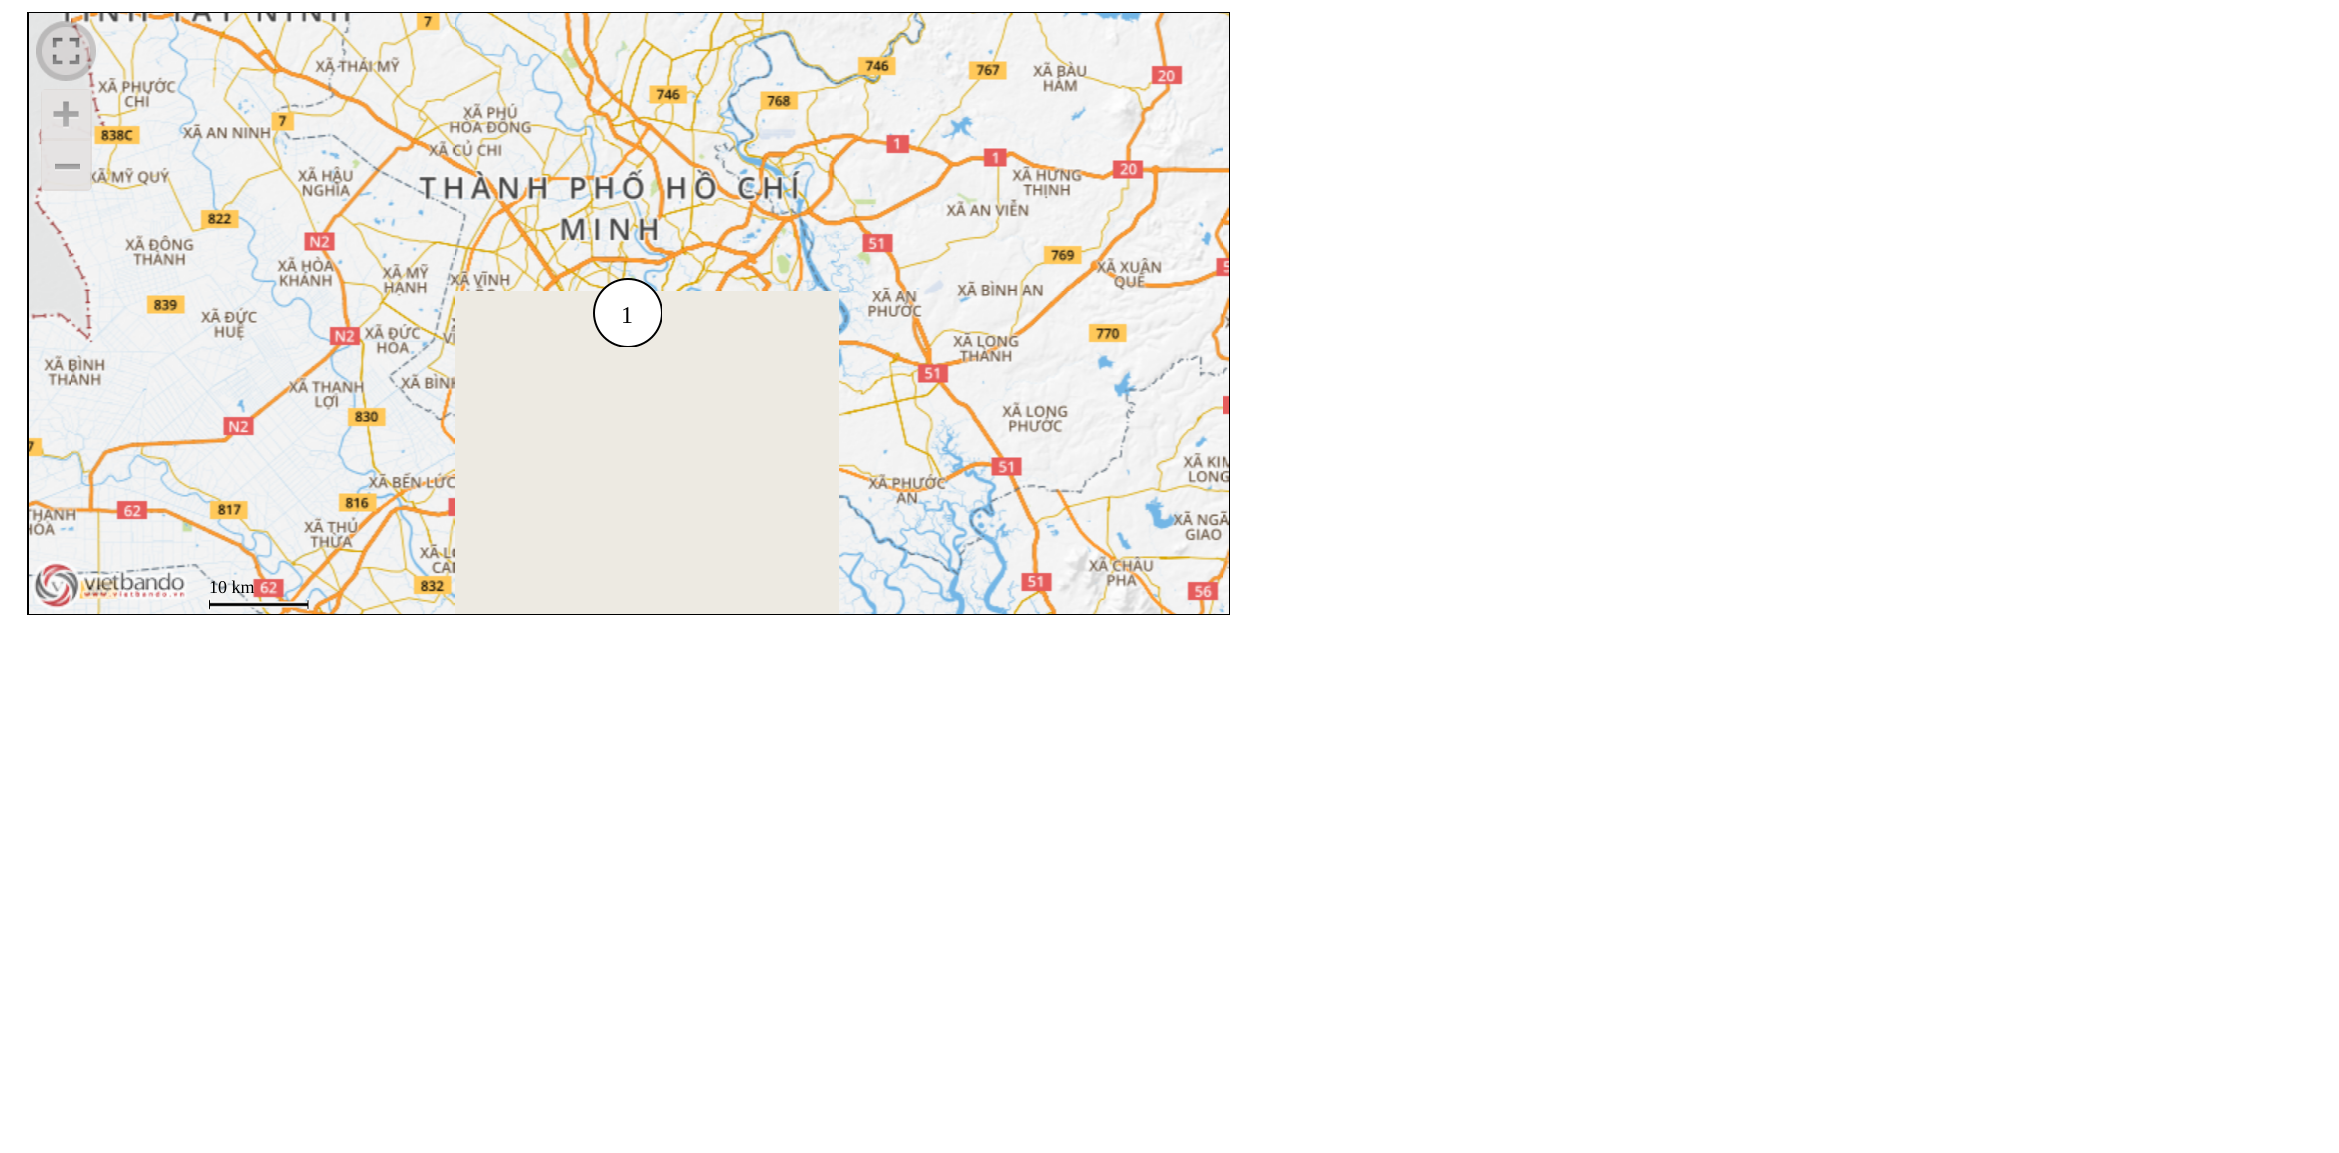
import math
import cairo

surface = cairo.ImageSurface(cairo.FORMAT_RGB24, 2339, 1153)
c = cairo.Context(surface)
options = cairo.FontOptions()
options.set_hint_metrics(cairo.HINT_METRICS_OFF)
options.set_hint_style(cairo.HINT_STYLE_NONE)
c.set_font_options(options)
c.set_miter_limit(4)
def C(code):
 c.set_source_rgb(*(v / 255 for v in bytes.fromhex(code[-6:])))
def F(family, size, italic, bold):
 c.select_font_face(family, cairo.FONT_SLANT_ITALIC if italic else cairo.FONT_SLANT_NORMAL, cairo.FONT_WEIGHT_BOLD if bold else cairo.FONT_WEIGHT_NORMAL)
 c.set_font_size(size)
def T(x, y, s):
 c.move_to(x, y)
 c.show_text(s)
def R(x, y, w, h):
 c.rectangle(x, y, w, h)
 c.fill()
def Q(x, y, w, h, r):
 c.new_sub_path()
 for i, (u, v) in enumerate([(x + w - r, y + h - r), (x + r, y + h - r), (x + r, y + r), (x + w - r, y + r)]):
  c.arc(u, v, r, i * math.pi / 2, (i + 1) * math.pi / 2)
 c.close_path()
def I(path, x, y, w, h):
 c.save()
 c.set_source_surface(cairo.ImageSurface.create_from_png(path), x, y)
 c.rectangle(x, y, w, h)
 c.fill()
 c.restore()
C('ffffff')
c.paint()
c.rectangle(28,13,1201,601)
C('000000')
c.stroke()
I('5.png',29,13,42,278)
I('6.png',71,13,384,278)
I('1.png',36,21,60,60)
I('2.png',42,27,48,48)
c.set_source_rgba(0.867,0.847,0.839,0.8)
Q(41,89,51,102,5)
c.fill()
c.set_source_rgba(0.902,0.894,0.894,0.8)
R(42,90,48,48)
I('3.png',53,101,26,28)
R(42,141,48,48)
I('4.png',55,163,25,8)
C('edeae2')
R(455,291,384,323)
I('7.png',455,13,384,278)
I('8.png',839,13,384,278)
I('9.png',1223,13,6,278)
I('10.png',29,291,42,323)
I('11.png',71,291,384,323)
I('12.png',839,291,384,323)
I('13.png',1223,291,6,323)
c.save()
c.rectangle(593,278,69,69)
c.clip()
C('ffffff')
c.arc(628,313,34,0,2 * math.pi)
c.fill_preserve()
C('000000')
c.stroke()
c.restore()
F('Liberation Serif',24,0,0)
C('000000')
T(621,323,'1')
I('14.png',31,561,157,50)
F('Liberation Serif',18,0,0)
T(209,593,'10 km')
I('15.png',208,598,101,13)
surface.write_to_png('o.png')
